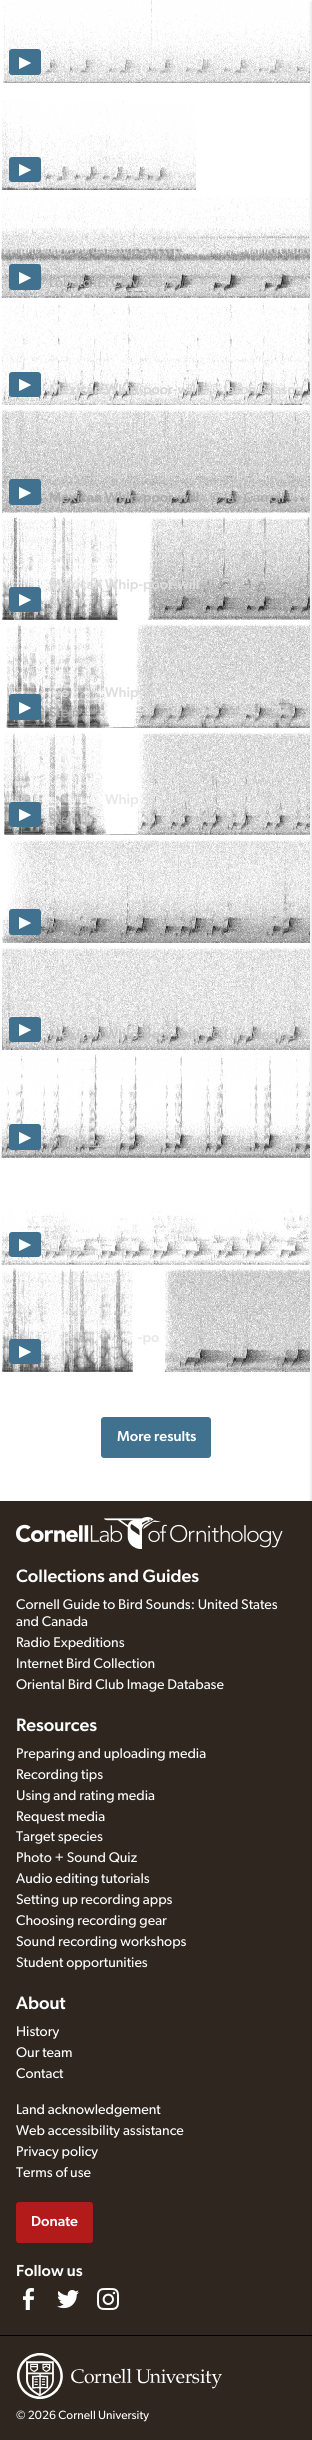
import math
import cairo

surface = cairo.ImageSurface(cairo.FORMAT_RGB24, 312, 2440)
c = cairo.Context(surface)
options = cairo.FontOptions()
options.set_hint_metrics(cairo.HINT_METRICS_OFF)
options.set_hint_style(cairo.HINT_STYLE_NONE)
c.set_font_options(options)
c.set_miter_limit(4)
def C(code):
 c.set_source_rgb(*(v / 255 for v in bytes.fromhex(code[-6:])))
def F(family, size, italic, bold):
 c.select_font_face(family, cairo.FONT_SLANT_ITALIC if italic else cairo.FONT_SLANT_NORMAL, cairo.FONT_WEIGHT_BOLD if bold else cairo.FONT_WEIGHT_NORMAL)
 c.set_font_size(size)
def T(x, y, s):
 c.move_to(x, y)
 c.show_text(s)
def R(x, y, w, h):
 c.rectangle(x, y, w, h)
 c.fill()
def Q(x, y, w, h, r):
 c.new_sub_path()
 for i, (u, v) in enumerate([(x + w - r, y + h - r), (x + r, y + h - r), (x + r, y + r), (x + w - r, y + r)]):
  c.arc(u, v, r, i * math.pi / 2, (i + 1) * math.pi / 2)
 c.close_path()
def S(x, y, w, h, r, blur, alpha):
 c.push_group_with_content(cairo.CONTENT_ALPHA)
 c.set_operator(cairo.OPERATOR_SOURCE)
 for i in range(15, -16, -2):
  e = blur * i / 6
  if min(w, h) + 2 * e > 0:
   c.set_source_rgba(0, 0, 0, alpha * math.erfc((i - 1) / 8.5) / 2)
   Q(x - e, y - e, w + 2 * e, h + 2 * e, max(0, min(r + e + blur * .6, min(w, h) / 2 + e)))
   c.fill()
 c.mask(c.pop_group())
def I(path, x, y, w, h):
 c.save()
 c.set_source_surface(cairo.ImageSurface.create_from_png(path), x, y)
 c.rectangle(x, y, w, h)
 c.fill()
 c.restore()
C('ffffff')
c.paint()
I('1.png',3,0,307,83)
C('40718f')
Q(9,49,32,26,3)
c.fill()
I('2.png',19,57,12,12)
I('3.png',1,100,195,90)
Q(9,157,32,25,3)
c.fill()
I('2.png',19,164,12,12)
F('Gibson',14.1,0,0)
C('dedede')
T(61,179,'i')
I('4.png',1,196,309,102)
C('40718f')
Q(9,264,32,26,3)
c.fill()
I('2.png',19,272,12,12)
C('b6b6b6')
T(49,287,'Lobato (El Chivizcoyo)')
I('5.png',1,302,309,103)
C('40718f')
Q(9,372,32,25,3)
c.fill()
I('2.png',19,379,12,12)
F('Gibson Medium',14.1,0,0)
C('d7d7d7')
T(49,394,'Mexican Whip-poor-will')
F('Gibson',14.1,0,0)
T(210,394,'© Jason Beason')
I('6.png',2,409,308,104)
C('40718f')
Q(9,479,32,26,3)
c.fill()
I('2.png',19,487,12,12)
F('Gibson Medium',14.1,0,0)
C('acacac')
T(49,502,'Mexican Whip-poor-will')
F('Gibson',14.1,0,0)
T(210,502,'© Jay Carroll')
I('7.png',1,516,309,104)
F('Gibson Medium',14.1,0,0)
C('dedede')
T(49,589,'Mexican Whip-poor-will')
C('40718f')
Q(9,587,32,25,3)
c.fill()
I('2.png',19,594,12,12)
I('8.png',6,624,304,104)
Q(9,694,32,26,3)
c.fill()
I('2.png',19,702,12,12)
C('dedede')
T(61,697,'e')
T(105,697,'Whip')
F('Gibson',14.1,0,0)
C('acacac')
T(49,717,'Stein')
I('9.png',3,732,307,103)
C('40718f')
Q(9,802,32,25,3)
c.fill()
I('2.png',19,809,12,12)
F('Gibson Medium',14.1,0,0)
C('e8e8e8')
T(105,804,'Whip')
F('Gibson',14.1,0,0)
C('acacac')
T(49,824,'Stein')
I('10.png',2,839,308,104)
C('40718f')
Q(9,909,32,26,3)
c.fill()
I('2.png',19,917,12,12)
C('999999')
T(49,932,'Rideout')
I('11.png',2,947,308,103)
C('40718f')
Q(9,1017,32,25,3)
c.fill()
I('2.png',19,1024,12,12)
F('Gibson Medium',14.1,0,0)
C('c5c5c5')
T(49,1039,'Mexican Whip-poor-will')
F('Gibson',14.1,0,0)
T(210,1039,'© Luis Medina')
I('12.png',1,1054,309,104)
C('40718f')
Q(9,1124,32,26,3)
c.fill()
I('2.png',19,1132,12,12)
C('b6b6b6')
T(49,1147,'Marantz')
I('13.png',1,1208,309,57)
C('40718f')
Q(9,1232,32,25,3)
c.fill()
I('2.png',19,1239,12,12)
C('d7d7d7')
T(49,1254,'Holmes')
I('14.png',1,1266,309,106)
C('40718f')
Q(9,1339,32,25,3)
c.fill()
I('2.png',19,1346,12,12)
F('Gibson Medium',14.1,0,0)
C('e8e8e8')
T(138,1342,'-po')
C('40718f')
Q(101,1417,110,41,3)
c.fill()
F('Gibson Medium',14.5,0,0)
C('ffffff')
T(117,1441,'More results')
C('2e261f')
R(0,1501,312,939)
C('000000')
R(0,2335,312,1)
C('000000')
S(312,2,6,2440,0,2,.2)
I('15.png',16,1517,267,32)
F('Gibson Medium',18,0,0)
C('ffffff')
T(16,1582,'Collections and Guides')
F('Gibson',14.1,0,0)
T(16,1609,'Cornell Guide to Bird Sounds: United States')
T(16,1626,'and Canada')
T(16,1647,'Radio Expeditions')
T(16,1668,'Internet Bird Collection')
T(16,1689,'Oriental Bird Club Image Database')
F('Gibson Medium',18,0,0)
T(16,1731,'Resources')
F('Gibson',14.1,0,0)
T(16,1758,'Preparing and uploading media')
T(16,1779,'Recording tips')
T(16,1800,'Using and rating media')
T(16,1821,'Request media')
T(16,1841,'Target species')
T(16,1862,'Photo + Sound Quiz')
T(16,1883,'Audio editing tutorials')
T(16,1904,'Setting up recording apps')
T(16,1925,'Choosing recording gear')
T(16,1946,'Sound recording workshops')
T(16,1967,'Student opportunities')
F('Gibson Medium',18,0,0)
T(16,2009,'About')
F('Gibson',14.1,0,0)
T(16,2036,'History')
T(16,2057,'Our team')
T(16,2078,'Contact')
T(16,2114,'Land acknowledgement')
T(16,2135,'Web accessibility assistance')
T(16,2156,'Privacy policy')
T(16,2177,'Terms of use')
C('b31b1b')
Q(16,2202,77,41,3)
c.fill()
F('Gibson Medium',14.5,0,0)
C('ffffff')
T(31,2226,'Donate')
F('Gibson Medium',16,0,0)
T(16,2276,'Follow us')
I('16.png',23,2288,11,22)
I('17.png',57,2290,22,19)
I('18.png',97,2288,22,22)
I('19.png',17,2353,205,46)
F('Gibson',12,0,0)
T(16,2419,'© 2026 Cornell University')
surface.write_to_png('o.png')
